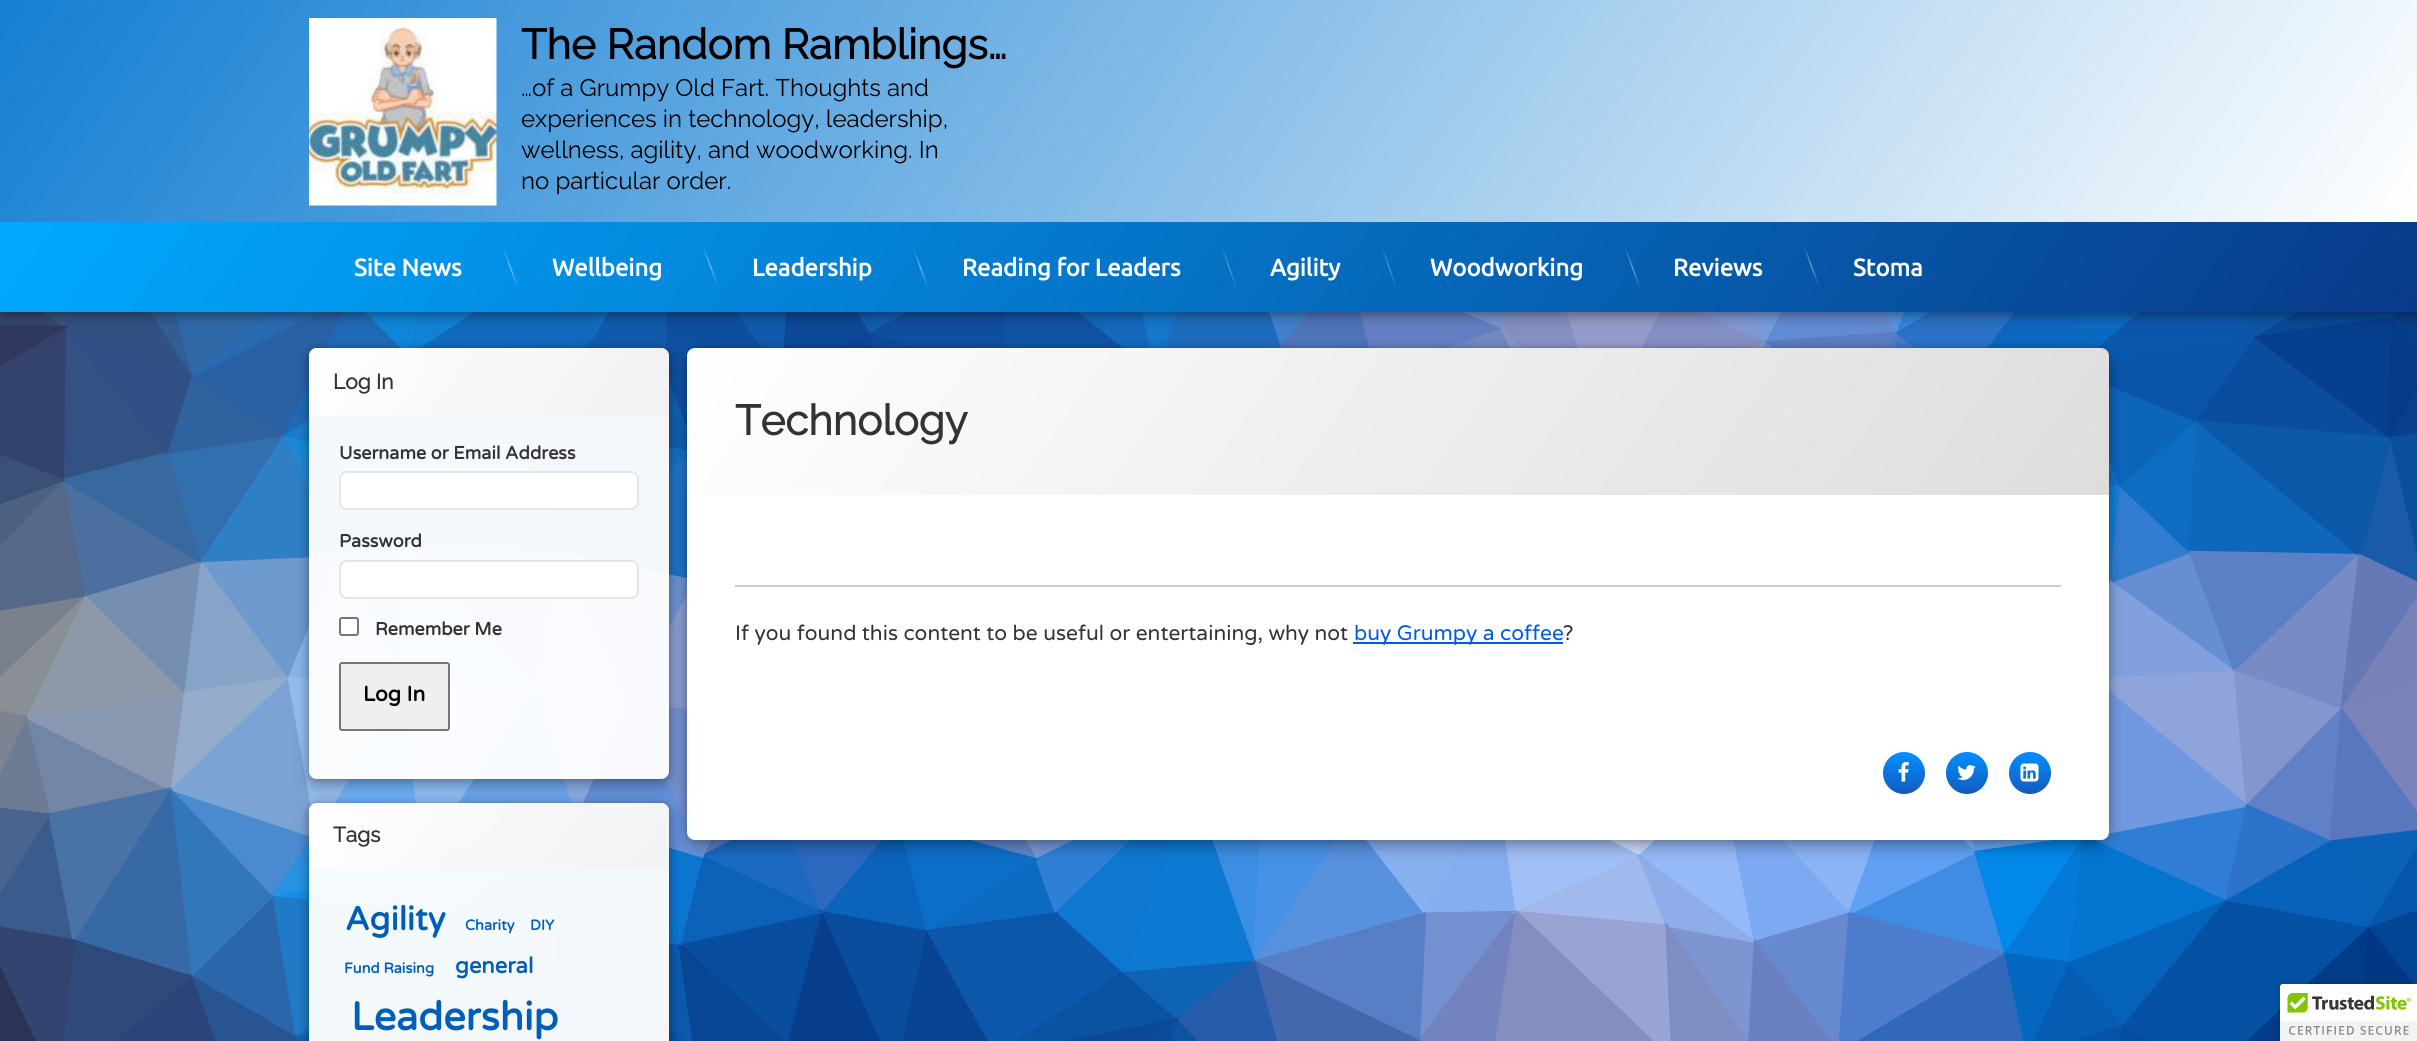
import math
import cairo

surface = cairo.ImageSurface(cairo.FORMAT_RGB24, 2417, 1041)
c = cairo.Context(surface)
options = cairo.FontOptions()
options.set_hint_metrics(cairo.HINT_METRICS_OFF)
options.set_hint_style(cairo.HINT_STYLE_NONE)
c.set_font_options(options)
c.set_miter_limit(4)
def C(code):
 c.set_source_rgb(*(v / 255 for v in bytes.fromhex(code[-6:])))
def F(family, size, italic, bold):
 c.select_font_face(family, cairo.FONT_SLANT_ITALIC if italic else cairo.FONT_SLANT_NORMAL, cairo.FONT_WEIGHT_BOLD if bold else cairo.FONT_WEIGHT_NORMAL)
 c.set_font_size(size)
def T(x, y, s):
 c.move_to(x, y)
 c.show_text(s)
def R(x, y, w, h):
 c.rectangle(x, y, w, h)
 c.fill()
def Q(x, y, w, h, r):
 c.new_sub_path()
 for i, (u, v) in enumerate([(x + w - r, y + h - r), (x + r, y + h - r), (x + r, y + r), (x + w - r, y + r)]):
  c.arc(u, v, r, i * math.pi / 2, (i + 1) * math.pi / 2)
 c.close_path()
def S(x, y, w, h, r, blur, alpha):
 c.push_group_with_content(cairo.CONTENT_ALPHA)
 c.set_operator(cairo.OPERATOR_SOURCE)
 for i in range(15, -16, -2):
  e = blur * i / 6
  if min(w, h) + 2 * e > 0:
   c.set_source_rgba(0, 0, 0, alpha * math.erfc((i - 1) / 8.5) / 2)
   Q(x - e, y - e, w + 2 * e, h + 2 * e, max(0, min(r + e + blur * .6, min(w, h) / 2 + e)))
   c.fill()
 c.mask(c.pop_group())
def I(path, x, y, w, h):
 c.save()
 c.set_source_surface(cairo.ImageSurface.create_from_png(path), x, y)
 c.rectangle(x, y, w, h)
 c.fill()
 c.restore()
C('ffffff')
c.paint()
I('5.png',0,312,2417,729)
C('000000')
S(3,3,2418,312,0,5,.3)
S(0,0,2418,312,0,11,.2)
gradient = cairo.LinearGradient(346,-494,2072,716)
gradient.add_color_stop_rgba(0,0.082,0.498,0.827,1)
gradient.add_color_stop_rgba(1,1,1,1,1)
c.set_source(gradient)
R(0,0,2417,222)
I('1.png',309,18,188,188)
F('Raleway',42,0,1)
C('000000')
T(521,59,'The Random Ramblings…')
F('Raleway Thin',24,0,0)
T(521,96,'…of a Grumpy Old Fart. Thoughts and')
T(521,127,'experiences in technology, leadership,')
T(521,158,'wellness, agility, and woodworking. In')
T(521,189,'no particular order.')
gradient = cairo.LinearGradient(377,-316,2041,850)
gradient.add_color_stop_rgba(0,0,0.663,1,1)
gradient.add_color_stop_rgba(1,0.035,0.227,0.537,1)
c.set_source(gradient)
R(0,222,2417,90)
F('Ubuntu',24,0,1)
C('ffffff')
T(354,276,'Site News')
gradient = cairo.LinearGradient(503,246,518,288)
gradient.add_color_stop_rgba(0,0.008,0.569,0.898,1)
gradient.add_color_stop_rgba(.5,0.404,0.741,0.937,1)
gradient.add_color_stop_rgba(1,0.008,0.569,0.898,1)
c.set_source(gradient)
c.new_path()
c.move_to(502,246)
c.line_to(503,246)
c.line_to(519,288)
c.line_to(517,288)
c.close_path()
c.fill()
C('ffffff')
T(552,276,'Wellbeing')
gradient = cairo.LinearGradient(703,246,718,288)
gradient.add_color_stop_rgba(0,0.012,0.533,0.863,1)
gradient.add_color_stop_rgba(.5,0.408,0.722,0.918,1)
gradient.add_color_stop_rgba(1,0.012,0.533,0.863,1)
c.set_source(gradient)
c.new_path()
c.move_to(702,246)
c.line_to(704,246)
c.line_to(719,288)
c.line_to(718,288)
c.close_path()
c.fill()
C('ffffff')
T(752,276,'Leadership')
gradient = cairo.LinearGradient(913,246,928,288)
gradient.add_color_stop_rgba(0,0.012,0.494,0.824,1)
gradient.add_color_stop_rgba(.5,0.408,0.698,0.894,1)
gradient.add_color_stop_rgba(1,0.012,0.494,0.824,1)
c.set_source(gradient)
c.new_path()
c.move_to(912,246)
c.line_to(913,246)
c.line_to(929,288)
c.line_to(927,288)
c.close_path()
c.fill()
C('ffffff')
T(962,276,'Reading for Leaders')
gradient = cairo.LinearGradient(1221,246,1237,288)
gradient.add_color_stop_rgba(0,0.02,0.443,0.765,1)
gradient.add_color_stop_rgba(.5,0.412,0.667,0.859,1)
gradient.add_color_stop_rgba(1,0.02,0.443,0.765,1)
c.set_source(gradient)
c.new_path()
c.move_to(1221,246)
c.line_to(1222,246)
c.line_to(1237,288)
c.line_to(1236,288)
c.close_path()
c.fill()
C('ffffff')
T(1270,276,'Agility')
gradient = cairo.LinearGradient(1381,246,1397,288)
gradient.add_color_stop_rgba(0,0.02,0.412,0.733,1)
gradient.add_color_stop_rgba(.5,0.412,0.647,0.839,1)
gradient.add_color_stop_rgba(1,0.02,0.412,0.733,1)
c.set_source(gradient)
c.new_path()
c.move_to(1381,246)
c.line_to(1382,246)
c.line_to(1397,288)
c.line_to(1396,288)
c.close_path()
c.fill()
C('ffffff')
T(1430,276,'Woodworking')
gradient = cairo.LinearGradient(1624,246,1640,288)
gradient.add_color_stop_rgba(0,0.024,0.369,0.69,1)
gradient.add_color_stop_rgba(.5,0.416,0.624,0.812,1)
gradient.add_color_stop_rgba(1,0.024,0.369,0.69,1)
c.set_source(gradient)
c.new_path()
c.move_to(1624,246)
c.line_to(1625,246)
c.line_to(1641,288)
c.line_to(1639,288)
c.close_path()
c.fill()
C('ffffff')
T(1673,276,'Reviews')
gradient = cairo.LinearGradient(1804,246,1819,288)
gradient.add_color_stop_rgba(0,0.027,0.341,0.655,1)
gradient.add_color_stop_rgba(.5,0.416,0.604,0.792,1)
gradient.add_color_stop_rgba(1,0.027,0.341,0.655,1)
c.set_source(gradient)
c.new_path()
c.move_to(1803,246)
c.line_to(1805,246)
c.line_to(1820,288)
c.line_to(1819,288)
c.close_path()
c.fill()
C('ffffff')
T(1853,276,'Stoma')
c.save()
c.set_fill_rule(cairo.FILL_RULE_EVEN_ODD)
c.new_path()
c.move_to(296,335)
c.line_to(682,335)
c.line_to(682,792)
c.line_to(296,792)
c.close_path()
c.move_to(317,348)
c.line_to(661,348)
c.curve_to(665.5,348,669,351.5,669,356)
c.line_to(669,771)
c.curve_to(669,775.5,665.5,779,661,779)
c.line_to(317,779)
c.curve_to(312.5,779,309,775.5,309,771)
c.line_to(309,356)
c.curve_to(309,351.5,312.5,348,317,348)
c.close_path()
c.clip()
C('000000')
S(309,348,360,431,8,4,.25)
c.restore()
c.save()
c.set_fill_rule(cairo.FILL_RULE_EVEN_ODD)
c.new_path()
c.move_to(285,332)
c.line_to(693,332)
c.line_to(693,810)
c.line_to(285,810)
c.close_path()
c.move_to(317,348)
c.line_to(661,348)
c.curve_to(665.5,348,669,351.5,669,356)
c.line_to(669,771)
c.curve_to(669,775.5,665.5,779,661,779)
c.line_to(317,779)
c.curve_to(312.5,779,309,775.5,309,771)
c.line_to(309,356)
c.curve_to(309,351.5,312.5,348,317,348)
c.close_path()
c.clip()
C('000000')
S(309,356,360,430,8,7.5,.25)
c.restore()
c.set_source_rgba(1,1,1,0.95)
Q(309,348,360,431,8)
c.fill()
gradient = cairo.LinearGradient(352,286,626,477)
gradient.add_color_stop_rgba(0,1,1,1,1)
gradient.add_color_stop_rgba(1,0.941,0.941,0.941,.75)
c.set_source(gradient)
c.new_path()
c.move_to(317,348)
c.line_to(661,348)
c.curve_to(665.5,348,669,351.5,669,356)
c.line_to(669,416)
c.line_to(309,416)
c.line_to(309,356)
c.curve_to(309,351.5,312.5,348,317,348)
c.close_path()
c.fill()
F('Raleway',21,0,1)
C('333333')
T(333,389,'Log In')
F('Varela Round',18,0,1)
T(339,459,'Username or Email Address')
C('ffffff')
Q(339,471,300,39,8)
c.fill()
Q(340,472,298,37,7)
c.set_source_rgba(0,0,0,0.1)
c.stroke()
C('333333')
T(339,547,'Password')
C('ffffff')
Q(339,560,300,39,8)
c.fill()
Q(340,561,298,37,7)
c.set_source_rgba(0,0,0,0.1)
c.stroke()
C('ffffff')
Q(340,618,18,17,2)
c.fill_preserve()
C('767676')
c.stroke()
C('333333')
T(375,635,'Remember Me')
C('efefef')
Q(340,663,109,67,2)
c.fill_preserve()
C('767676')
c.stroke()
F('Varela Round',21,0,1)
C('000000')
T(363,701,'Log In')
c.save()
c.set_fill_rule(cairo.FILL_RULE_EVEN_ODD)
c.new_path()
c.move_to(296,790)
c.line_to(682,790)
c.line_to(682,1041)
c.line_to(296,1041)
c.close_path()
c.move_to(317,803)
c.line_to(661,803)
c.curve_to(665.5,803,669,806.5,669,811)
c.line_to(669,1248)
c.curve_to(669,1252.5,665.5,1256,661,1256)
c.line_to(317,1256)
c.curve_to(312.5,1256,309,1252.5,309,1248)
c.line_to(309,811)
c.curve_to(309,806.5,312.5,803,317,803)
c.close_path()
c.clip()
C('000000')
S(309,803,360,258,8,4,.25)
c.restore()
c.save()
c.set_fill_rule(cairo.FILL_RULE_EVEN_ODD)
c.new_path()
c.move_to(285,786)
c.line_to(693,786)
c.line_to(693,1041)
c.line_to(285,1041)
c.close_path()
c.move_to(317,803)
c.line_to(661,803)
c.curve_to(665.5,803,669,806.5,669,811)
c.line_to(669,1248)
c.curve_to(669,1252.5,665.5,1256,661,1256)
c.line_to(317,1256)
c.curve_to(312.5,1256,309,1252.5,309,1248)
c.line_to(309,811)
c.curve_to(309,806.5,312.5,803,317,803)
c.close_path()
c.clip()
C('000000')
S(309,810,360,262,8,7.5,.25)
c.restore()
c.set_source_rgba(1,1,1,0.95)
Q(309,803,360,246,8)
c.fill()
gradient = cairo.LinearGradient(352,741,626,932)
gradient.add_color_stop_rgba(0,1,1,1,1)
gradient.add_color_stop_rgba(1,0.941,0.941,0.941,.75)
c.set_source(gradient)
c.new_path()
c.move_to(317,803)
c.line_to(661,803)
c.curve_to(665.5,803,669,806.5,669,811)
c.line_to(669,870)
c.line_to(309,870)
c.line_to(309,811)
c.curve_to(309,806.5,312.5,803,317,803)
c.close_path()
c.fill()
F('Raleway',21,0,1)
C('333333')
T(333,842,'Tags')
F('Varela Round',33,0,1)
C('005ebb')
T(345,930,'Agility')
F('Varela Round',14.5,0,1)
T(465,930,'Charity')
T(530,930,'DIY')
T(344,973,'Fund Raising')
F('Varela Round',22,0,1)
T(455,973,'general')
F('Varela Round',39.5,0,1)
T(351,1030,'Leadership')
C('000000')
S(687,348,1422,492,15,4,.25)
S(687,356,1422,492,15,7.5,.25)
C('ffffff')
c.new_path()
c.move_to(702,348)
c.line_to(2094,348)
c.curve_to(2102.5,348,2109,354.5,2109,363)
c.line_to(2109,832)
c.curve_to(2109,836.5,2105.5,840,2101,840)
c.line_to(695,840)
c.curve_to(690.5,840,687,836.5,687,832)
c.line_to(687,363)
c.curve_to(687,354.5,693.5,348,702,348)
c.close_path()
c.fill()
gradient = cairo.LinearGradient(886,63,1910,780)
gradient.add_color_stop_rgba(0,1,1,1,1)
gradient.add_color_stop_rgba(1,0.867,0.867,0.867,1)
c.set_source(gradient)
c.new_path()
c.move_to(695,348)
c.line_to(2101,348)
c.curve_to(2105.5,348,2109,351.5,2109,356)
c.line_to(2109,495)
c.line_to(687,495)
c.line_to(687,356)
c.curve_to(687,351.5,690.5,348,695,348)
c.close_path()
c.fill()
F('Raleway',42,0,1)
C('333333')
T(735,435,'Technology')
C('cccccc')
R(735,585,1326,2)
F('Varela Round',21,0,0)
C('333333')
T(735,640,'If you found this content to be useful or entertaining, why not')
C('005ce4')
R(1353,642,210,2)
T(1354,640,'buy Grumpy a coffee')
C('333333')
T(1563,640,'?')
gradient = cairo.LinearGradient(1904,794,1904,752)
gradient.add_color_stop_rgba(0,0.075,0.353,0.749,1)
gradient.add_color_stop_rgba(1,0,0.565,1,1)
c.set_source(gradient)
c.new_path()
c.arc(1904,773,21,0,2 * math.pi)
c.fill()
I('2.png',1898,762,11,20)
gradient = cairo.LinearGradient(1967,794,1967,752)
gradient.add_color_stop_rgba(0,0.075,0.353,0.749,1)
gradient.add_color_stop_rgba(1,0,0.565,1,1)
c.set_source(gradient)
c.arc(1967,773,21,0,2 * math.pi)
c.fill()
I('3.png',1957,765,19,15)
gradient = cairo.LinearGradient(2030,794,2030,752)
gradient.add_color_stop_rgba(0,0.075,0.353,0.749,1)
gradient.add_color_stop_rgba(1,0,0.565,1,1)
c.set_source(gradient)
c.arc(2030,773,21,0,2 * math.pi)
c.fill()
I('4.png',2020,763,19,19)
C('000000')
S(2280,984,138,57,3,4,.2)
C('ffffff')
c.new_path()
c.move_to(2283,984)
c.line_to(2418,984)
c.line_to(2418,1041)
c.line_to(2280,1041)
c.line_to(2280,987)
c.curve_to(2280,985.5,2281.5,984,2283,984)
c.close_path()
c.fill()
I('6.png',2280,984,137,57)
surface.write_to_png('o.png')
